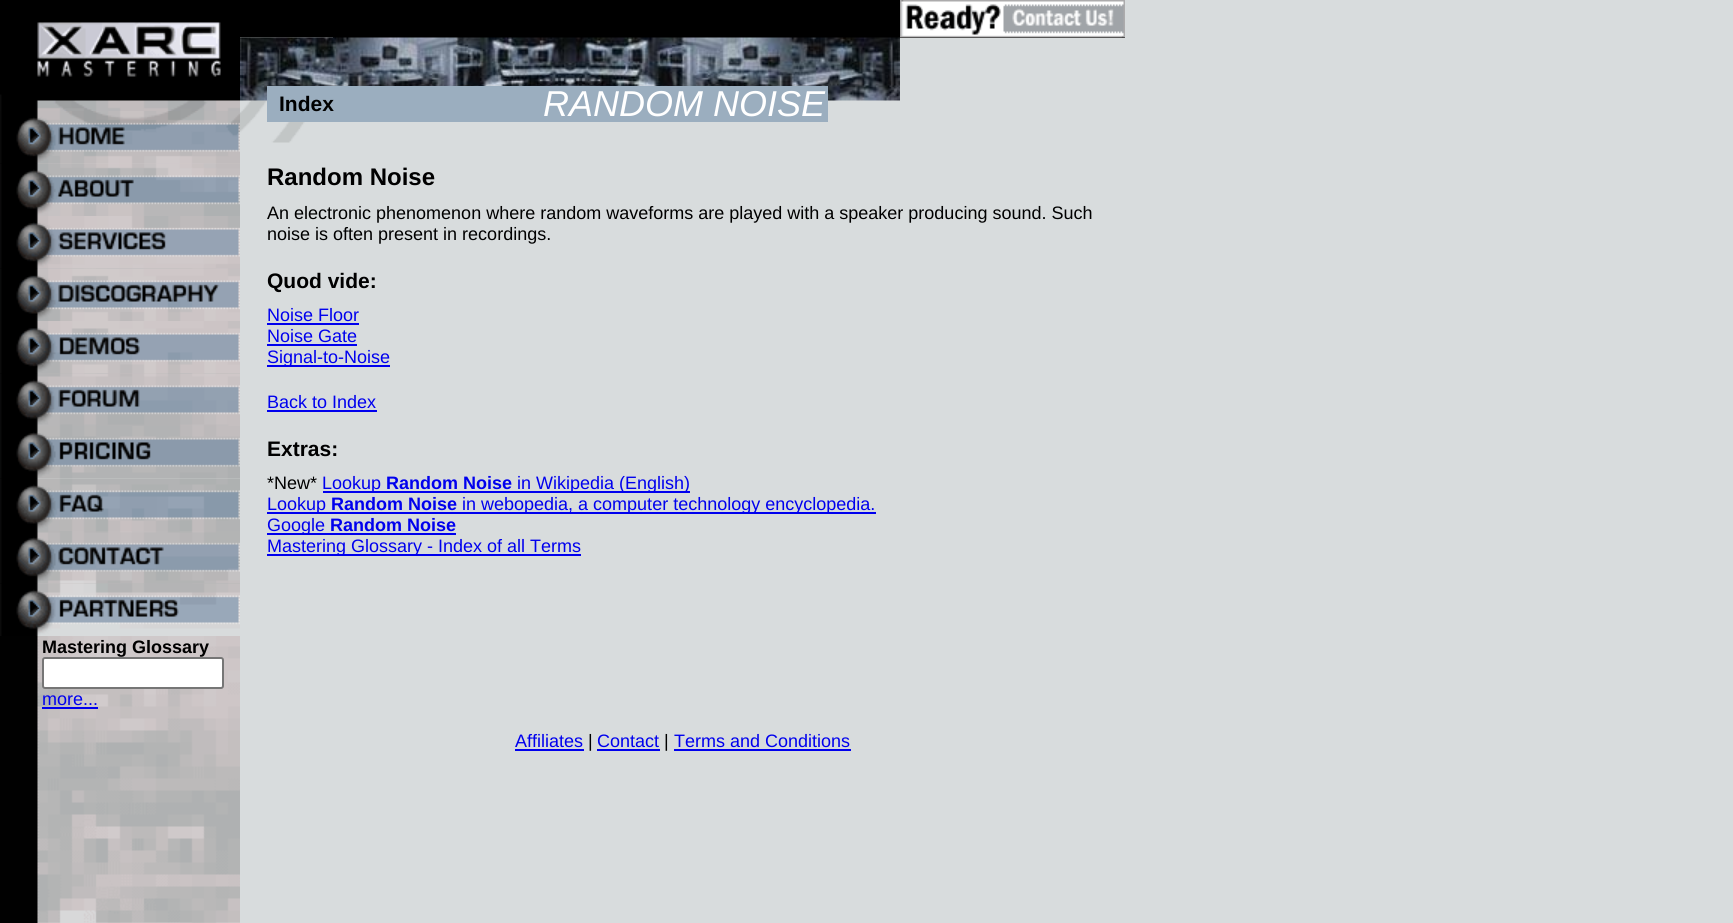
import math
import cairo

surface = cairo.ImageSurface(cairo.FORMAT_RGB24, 1733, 923)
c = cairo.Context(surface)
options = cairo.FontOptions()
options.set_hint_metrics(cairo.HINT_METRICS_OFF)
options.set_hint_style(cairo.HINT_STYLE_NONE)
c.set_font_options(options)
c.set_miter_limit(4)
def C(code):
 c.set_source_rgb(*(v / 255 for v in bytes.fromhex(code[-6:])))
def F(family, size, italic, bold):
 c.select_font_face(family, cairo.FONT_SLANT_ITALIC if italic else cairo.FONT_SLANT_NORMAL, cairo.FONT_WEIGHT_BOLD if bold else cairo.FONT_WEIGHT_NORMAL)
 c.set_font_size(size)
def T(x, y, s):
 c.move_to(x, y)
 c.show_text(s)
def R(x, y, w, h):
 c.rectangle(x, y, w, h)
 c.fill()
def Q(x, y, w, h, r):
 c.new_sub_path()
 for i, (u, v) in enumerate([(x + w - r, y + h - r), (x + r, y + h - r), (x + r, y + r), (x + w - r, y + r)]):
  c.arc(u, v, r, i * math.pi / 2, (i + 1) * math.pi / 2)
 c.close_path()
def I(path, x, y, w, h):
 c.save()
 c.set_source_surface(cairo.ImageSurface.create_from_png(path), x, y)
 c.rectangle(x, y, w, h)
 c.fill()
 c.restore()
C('d8dcdd')
c.paint()
I('1.png',0,163,240,760)
C('000000')
R(240,0,885,38)
I('2.png',900,0,225,38)
I('3.png',240,37,93,106)
I('4.png',240,37,660,64)
C('9baebf')
R(267,86,561,36)
F('Liberation Sans',21,0,1)
C('000000')
T(279,111,'Index')
F('Liberation Sans',36,1,0)
C('ffffff')
T(543,116,'RANDOM NOISE')
F('Liberation Sans',24,0,1)
C('000000')
T(267,185,'Random Noise')
F('Liberation Sans',18,0,0)
T(267,219,'An electronic phenomenon where random waveforms are played with a speaker producing sound. Such')
T(267,240,'noise is often present in recordings.')
F('Liberation Sans',21,0,1)
T(267,288,'Quod vide:')
F('Liberation Sans',18,0,0)
C('0000ee')
T(267,321,'Noise Floor')
R(267,323,92,2)
T(267,342,'Noise Gate')
R(267,344,90,2)
R(267,365,123,2)
T(267,363,'Signal-to-Noise')
T(267,408,'Back to Index')
R(267,410,110,2)
F('Liberation Sans',21,0,1)
C('000000')
T(267,456,'Extras:')
F('Liberation Sans',18,0,0)
T(267,489,'*New*')
C('0000ee')
R(323,491,367,2)
T(322,489,'Lookup')
F('Liberation Sans',18,0,1)
T(386,489,'Random Noise')
F('Liberation Sans',18,0,0)
T(517,489,'in Wikipedia (English)')
R(267,512,609,2)
T(267,510,'Lookup')
F('Liberation Sans',18,0,1)
T(331,510,'Random Noise')
F('Liberation Sans',18,0,0)
T(462,510,'in webopedia, a computer technology encyclopedia.')
R(267,533,189,2)
T(267,531,'Google')
F('Liberation Sans',18,0,1)
T(330,531,'Random Noise')
R(267,554,314,2)
F('Liberation Sans',18,0,0)
T(267,552,'Mastering Glossary - Index of all Terms')
I('5.png',0,0,240,111)
I('6.png',0,111,240,53)
I('7.png',0,163,240,53)
I('8.png',0,216,240,53)
I('9.png',0,268,240,53)
I('10.png',0,321,240,53)
I('11.png',0,373,240,53)
I('12.png',0,426,240,53)
I('13.png',0,478,240,53)
I('14.png',0,531,240,53)
I('15.png',0,583,240,53)
F('Liberation Sans',18,0,1)
C('000000')
T(42,653,'Mastering Glossary')
C('ffffff')
Q(43,658,180,30,2)
c.fill_preserve()
C('767676')
c.stroke()
F('Liberation Sans',18,0,0)
C('0000ee')
T(42,705,'more...')
R(42,707,56,2)
T(515,747,'Affiliates')
R(515,749,69,2)
C('000000')
T(588,747,'|')
C('0000ee')
T(597,747,'Contact')
R(597,749,63,2)
C('000000')
T(664,747,'|')
C('0000ee')
T(674,747,'Terms and Conditions')
R(674,749,177,2)
surface.write_to_png('o.png')
